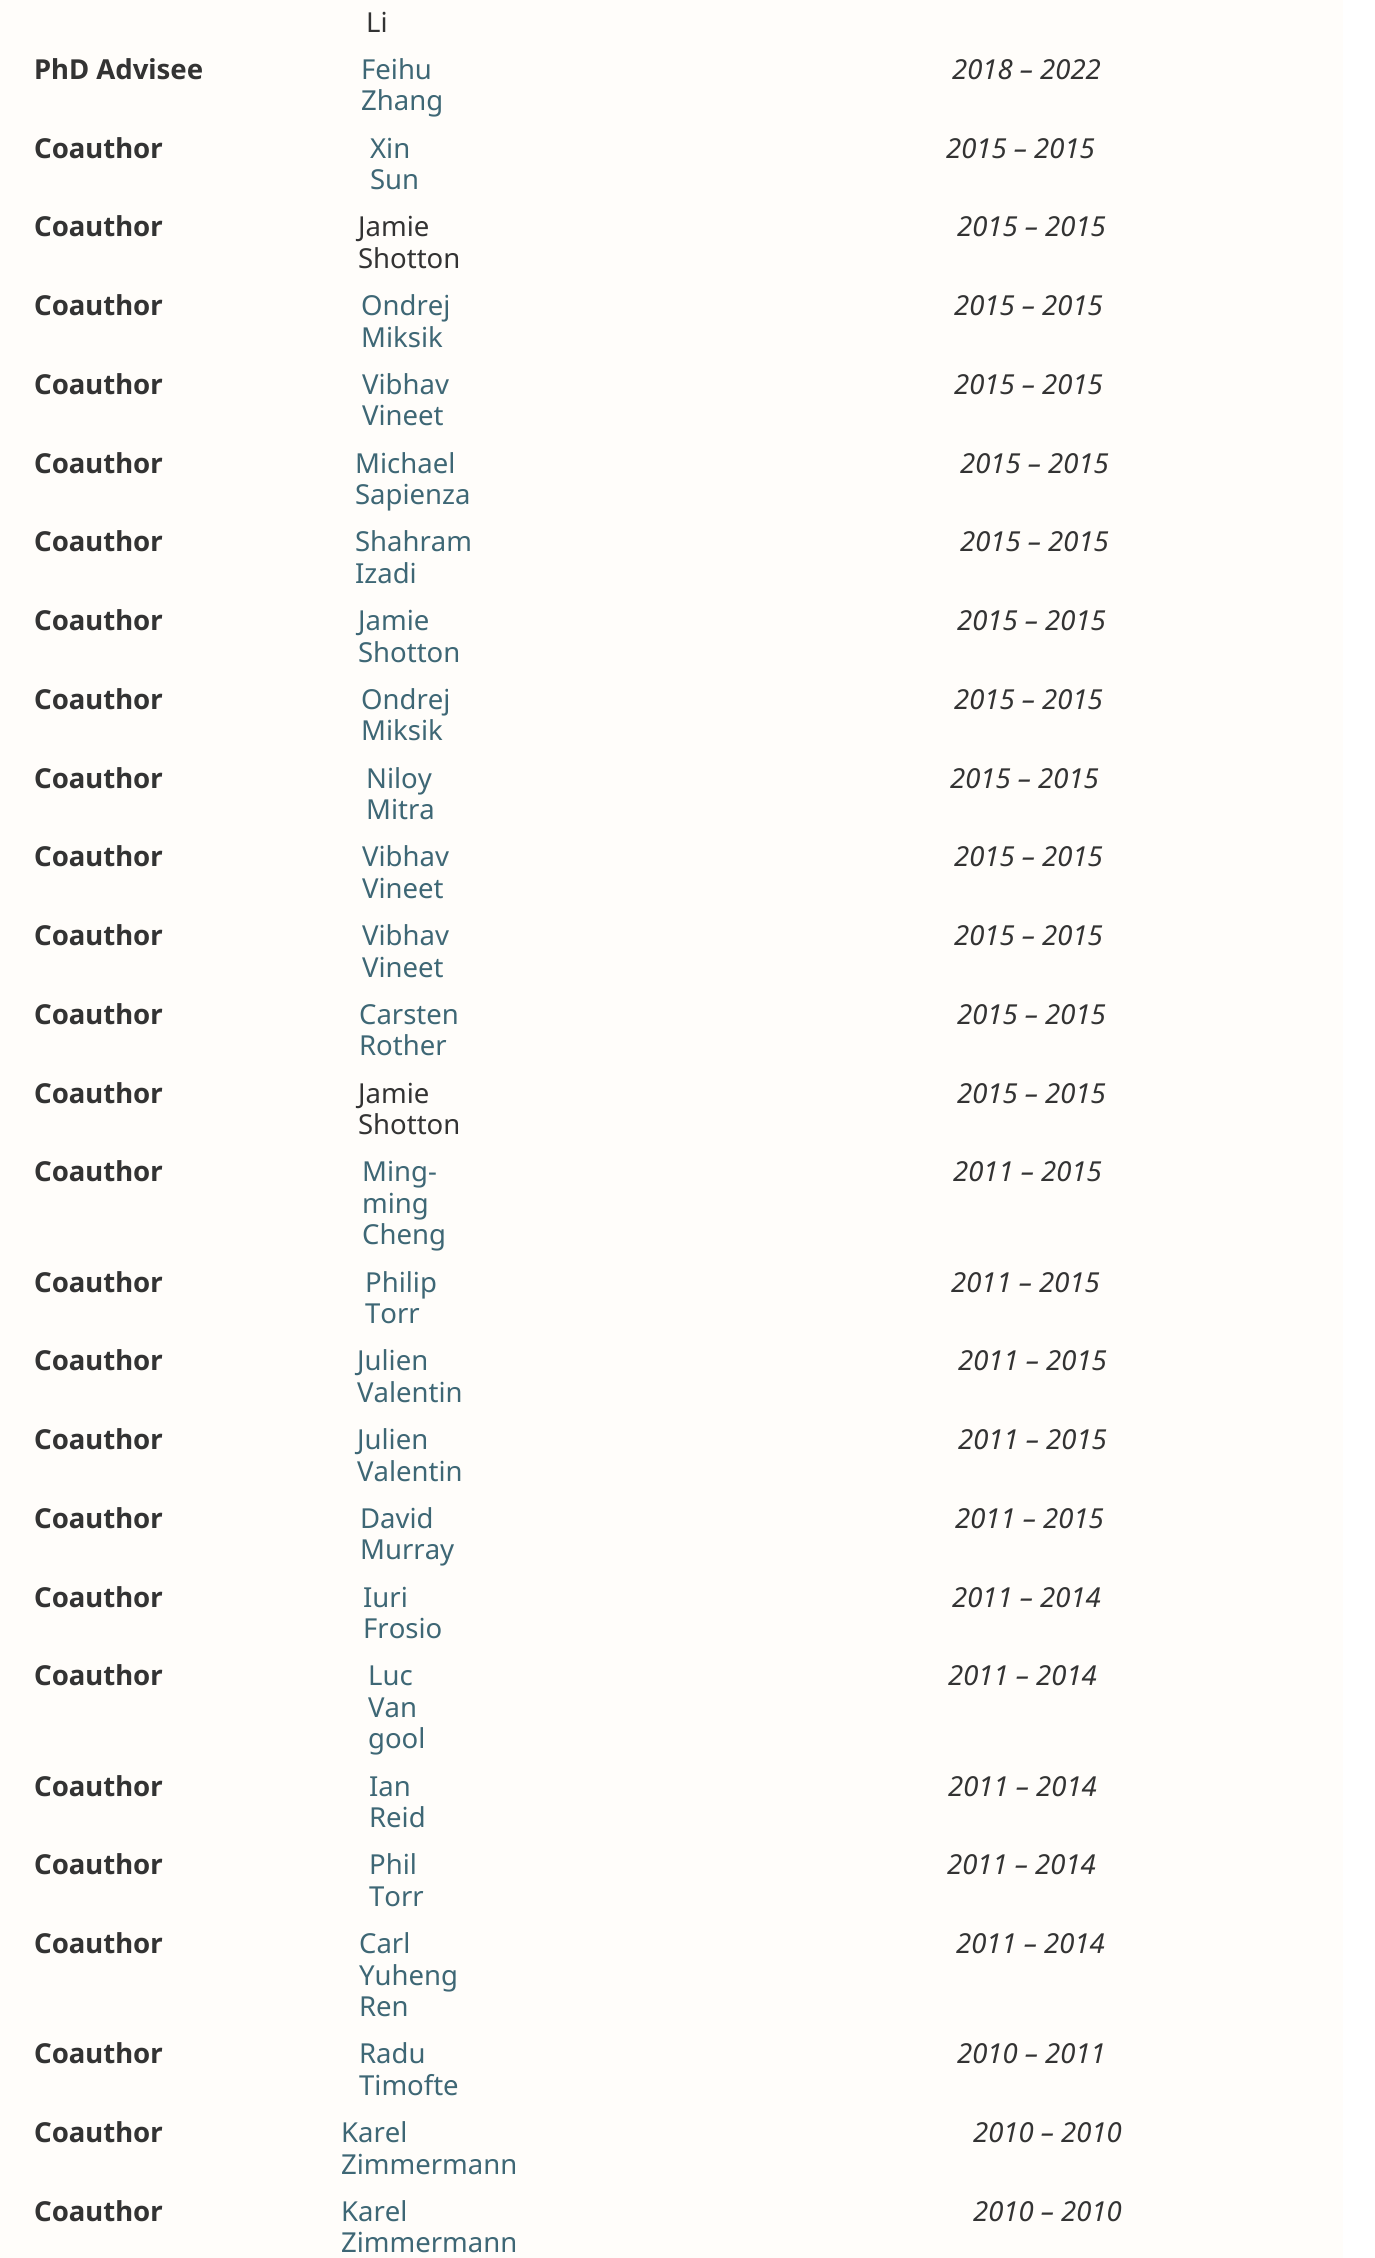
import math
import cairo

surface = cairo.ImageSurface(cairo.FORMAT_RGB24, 1375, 2258)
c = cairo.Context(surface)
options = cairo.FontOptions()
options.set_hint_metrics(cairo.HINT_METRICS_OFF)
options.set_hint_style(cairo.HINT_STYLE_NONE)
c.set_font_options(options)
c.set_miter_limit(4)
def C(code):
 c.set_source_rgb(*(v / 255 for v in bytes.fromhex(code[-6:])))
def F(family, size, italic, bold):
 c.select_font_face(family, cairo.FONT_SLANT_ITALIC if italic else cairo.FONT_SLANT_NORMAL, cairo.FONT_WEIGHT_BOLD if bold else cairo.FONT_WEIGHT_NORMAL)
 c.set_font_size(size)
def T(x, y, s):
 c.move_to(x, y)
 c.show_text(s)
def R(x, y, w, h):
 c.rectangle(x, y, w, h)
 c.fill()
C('ffffff')
c.paint()
C('fffdfa')
R(0,0,1343,2258)
F('Noto Sans',27.5,0,0)
C('333333')
T(366,32,'Li')
F('Noto Sans',27.5,0,1)
T(34,79,'PhD Advisee')
F('Noto Sans',27.5,0,0)
C('3e6775')
T(361,79,'Feihu')
T(361,110,'Zhang')
F('Noto Sans',27.5,1,0)
C('333333')
T(952,79,'2018 – 2022')
F('Noto Sans',27.5,0,1)
T(34,158,'Coauthor')
F('Noto Sans',27.5,0,0)
C('3e6775')
T(370,158,'Xin')
T(370,189,'Sun')
F('Noto Sans',27.5,1,0)
C('333333')
T(946,158,'2015 – 2015')
F('Noto Sans',27.5,0,1)
T(34,236,'Coauthor')
F('Noto Sans',27.5,0,0)
T(358,236,'Jamie')
T(358,268,'Shotton')
F('Noto Sans',27.5,1,0)
T(957,236,'2015 – 2015')
F('Noto Sans',27.5,0,1)
T(34,315,'Coauthor')
F('Noto Sans',27.5,0,0)
C('3e6775')
T(361,315,'Ondrej')
T(361,347,'Miksik')
F('Noto Sans',27.5,1,0)
C('333333')
T(954,315,'2015 – 2015')
F('Noto Sans',27.5,0,1)
T(34,394,'Coauthor')
F('Noto Sans',27.5,0,0)
C('3e6775')
T(362,394,'Vibhav')
T(362,425,'Vineet')
F('Noto Sans',27.5,1,0)
C('333333')
T(954,394,'2015 – 2015')
F('Noto Sans',27.5,0,1)
T(34,473,'Coauthor')
F('Noto Sans',27.5,0,0)
C('3e6775')
T(355,473,'Michael')
T(355,504,'Sapienza')
F('Noto Sans',27.5,1,0)
C('333333')
T(960,473,'2015 – 2015')
F('Noto Sans',27.5,0,1)
T(34,551,'Coauthor')
F('Noto Sans',27.5,0,0)
C('3e6775')
T(355,551,'Shahram')
T(355,583,'Izadi')
F('Noto Sans',27.5,1,0)
C('333333')
T(960,551,'2015 – 2015')
F('Noto Sans',27.5,0,1)
T(34,630,'Coauthor')
F('Noto Sans',27.5,0,0)
C('3e6775')
T(358,630,'Jamie')
T(358,662,'Shotton')
F('Noto Sans',27.5,1,0)
C('333333')
T(957,630,'2015 – 2015')
F('Noto Sans',27.5,0,1)
T(34,709,'Coauthor')
F('Noto Sans',27.5,0,0)
C('3e6775')
T(361,709,'Ondrej')
T(361,740,'Miksik')
F('Noto Sans',27.5,1,0)
C('333333')
T(954,709,'2015 – 2015')
F('Noto Sans',27.5,0,1)
T(34,788,'Coauthor')
F('Noto Sans',27.5,0,0)
C('3e6775')
T(366,788,'Niloy')
T(366,819,'Mitra')
F('Noto Sans',27.5,1,0)
C('333333')
T(950,788,'2015 – 2015')
F('Noto Sans',27.5,0,1)
T(34,866,'Coauthor')
F('Noto Sans',27.5,0,0)
C('3e6775')
T(362,866,'Vibhav')
T(362,898,'Vineet')
F('Noto Sans',27.5,1,0)
C('333333')
T(954,866,'2015 – 2015')
F('Noto Sans',27.5,0,1)
T(34,945,'Coauthor')
F('Noto Sans',27.5,0,0)
C('3e6775')
T(362,945,'Vibhav')
T(362,977,'Vineet')
F('Noto Sans',27.5,1,0)
C('333333')
T(954,945,'2015 – 2015')
F('Noto Sans',27.5,0,1)
T(34,1024,'Coauthor')
F('Noto Sans',27.5,0,0)
C('3e6775')
T(359,1024,'Carsten')
T(359,1055,'Rother')
F('Noto Sans',27.5,1,0)
C('333333')
T(957,1024,'2015 – 2015')
F('Noto Sans',27.5,0,1)
T(34,1103,'Coauthor')
F('Noto Sans',27.5,0,0)
T(358,1103,'Jamie')
T(358,1134,'Shotton')
F('Noto Sans',27.5,1,0)
T(957,1103,'2015 – 2015')
F('Noto Sans',27.5,0,1)
T(34,1181,'Coauthor')
F('Noto Sans',27.5,0,0)
C('3e6775')
T(362,1181,'Ming-')
T(362,1213,'ming')
T(362,1244,'Cheng')
F('Noto Sans',27.5,1,0)
C('333333')
T(953,1181,'2011 – 2015')
F('Noto Sans',27.5,0,1)
T(34,1292,'Coauthor')
F('Noto Sans',27.5,0,0)
C('3e6775')
T(365,1292,'Philip')
T(365,1323,'Torr')
F('Noto Sans',27.5,1,0)
C('333333')
T(951,1292,'2011 – 2015')
F('Noto Sans',27.5,0,1)
T(34,1370,'Coauthor')
F('Noto Sans',27.5,0,0)
C('3e6775')
T(357,1370,'Julien')
T(357,1402,'Valentin')
F('Noto Sans',27.5,1,0)
C('333333')
T(958,1370,'2011 – 2015')
F('Noto Sans',27.5,0,1)
T(34,1449,'Coauthor')
F('Noto Sans',27.5,0,0)
C('3e6775')
T(357,1449,'Julien')
T(357,1481,'Valentin')
F('Noto Sans',27.5,1,0)
C('333333')
T(958,1449,'2011 – 2015')
F('Noto Sans',27.5,0,1)
T(34,1528,'Coauthor')
F('Noto Sans',27.5,0,0)
C('3e6775')
T(360,1528,'David')
T(360,1559,'Murray')
F('Noto Sans',27.5,1,0)
C('333333')
T(955,1528,'2011 – 2015')
F('Noto Sans',27.5,0,1)
T(34,1607,'Coauthor')
F('Noto Sans',27.5,0,0)
C('3e6775')
T(363,1607,'Iuri')
T(363,1638,'Frosio')
F('Noto Sans',27.5,1,0)
C('333333')
T(952,1607,'2011 – 2014')
F('Noto Sans',27.5,0,1)
T(34,1685,'Coauthor')
F('Noto Sans',27.5,0,0)
C('3e6775')
T(368,1685,'Luc')
T(368,1717,'Van')
T(368,1748,'gool')
F('Noto Sans',27.5,1,0)
C('333333')
T(948,1685,'2011 – 2014')
F('Noto Sans',27.5,0,1)
T(34,1796,'Coauthor')
F('Noto Sans',27.5,0,0)
C('3e6775')
T(369,1796,'Ian')
T(369,1827,'Reid')
F('Noto Sans',27.5,1,0)
C('333333')
T(948,1796,'2011 – 2014')
F('Noto Sans',27.5,0,1)
T(34,1874,'Coauthor')
F('Noto Sans',27.5,0,0)
C('3e6775')
T(369,1874,'Phil')
T(369,1906,'Torr')
F('Noto Sans',27.5,1,0)
C('333333')
T(947,1874,'2011 – 2014')
F('Noto Sans',27.5,0,1)
T(34,1953,'Coauthor')
F('Noto Sans',27.5,0,0)
C('3e6775')
T(359,1953,'Carl')
T(359,1985,'Yuheng')
T(359,2016,'Ren')
F('Noto Sans',27.5,1,0)
C('333333')
T(956,1953,'2011 – 2014')
F('Noto Sans',27.5,0,1)
T(34,2063,'Coauthor')
F('Noto Sans',27.5,0,0)
C('3e6775')
T(359,2063,'Radu')
T(359,2095,'Timofte')
F('Noto Sans',27.5,1,0)
C('333333')
T(957,2063,'2010 – 2011')
F('Noto Sans',27.5,0,1)
T(34,2142,'Coauthor')
F('Noto Sans',27.5,0,0)
C('3e6775')
T(341,2142,'Karel')
T(341,2174,'Zimmermann')
F('Noto Sans',27.5,1,0)
C('333333')
T(973,2142,'2010 – 2010')
F('Noto Sans',27.5,0,1)
T(34,2221,'Coauthor')
F('Noto Sans',27.5,0,0)
C('3e6775')
T(341,2221,'Karel')
T(341,2252,'Zimmermann')
F('Noto Sans',27.5,1,0)
C('333333')
T(973,2221,'2010 – 2010')
surface.write_to_png('o.png')
